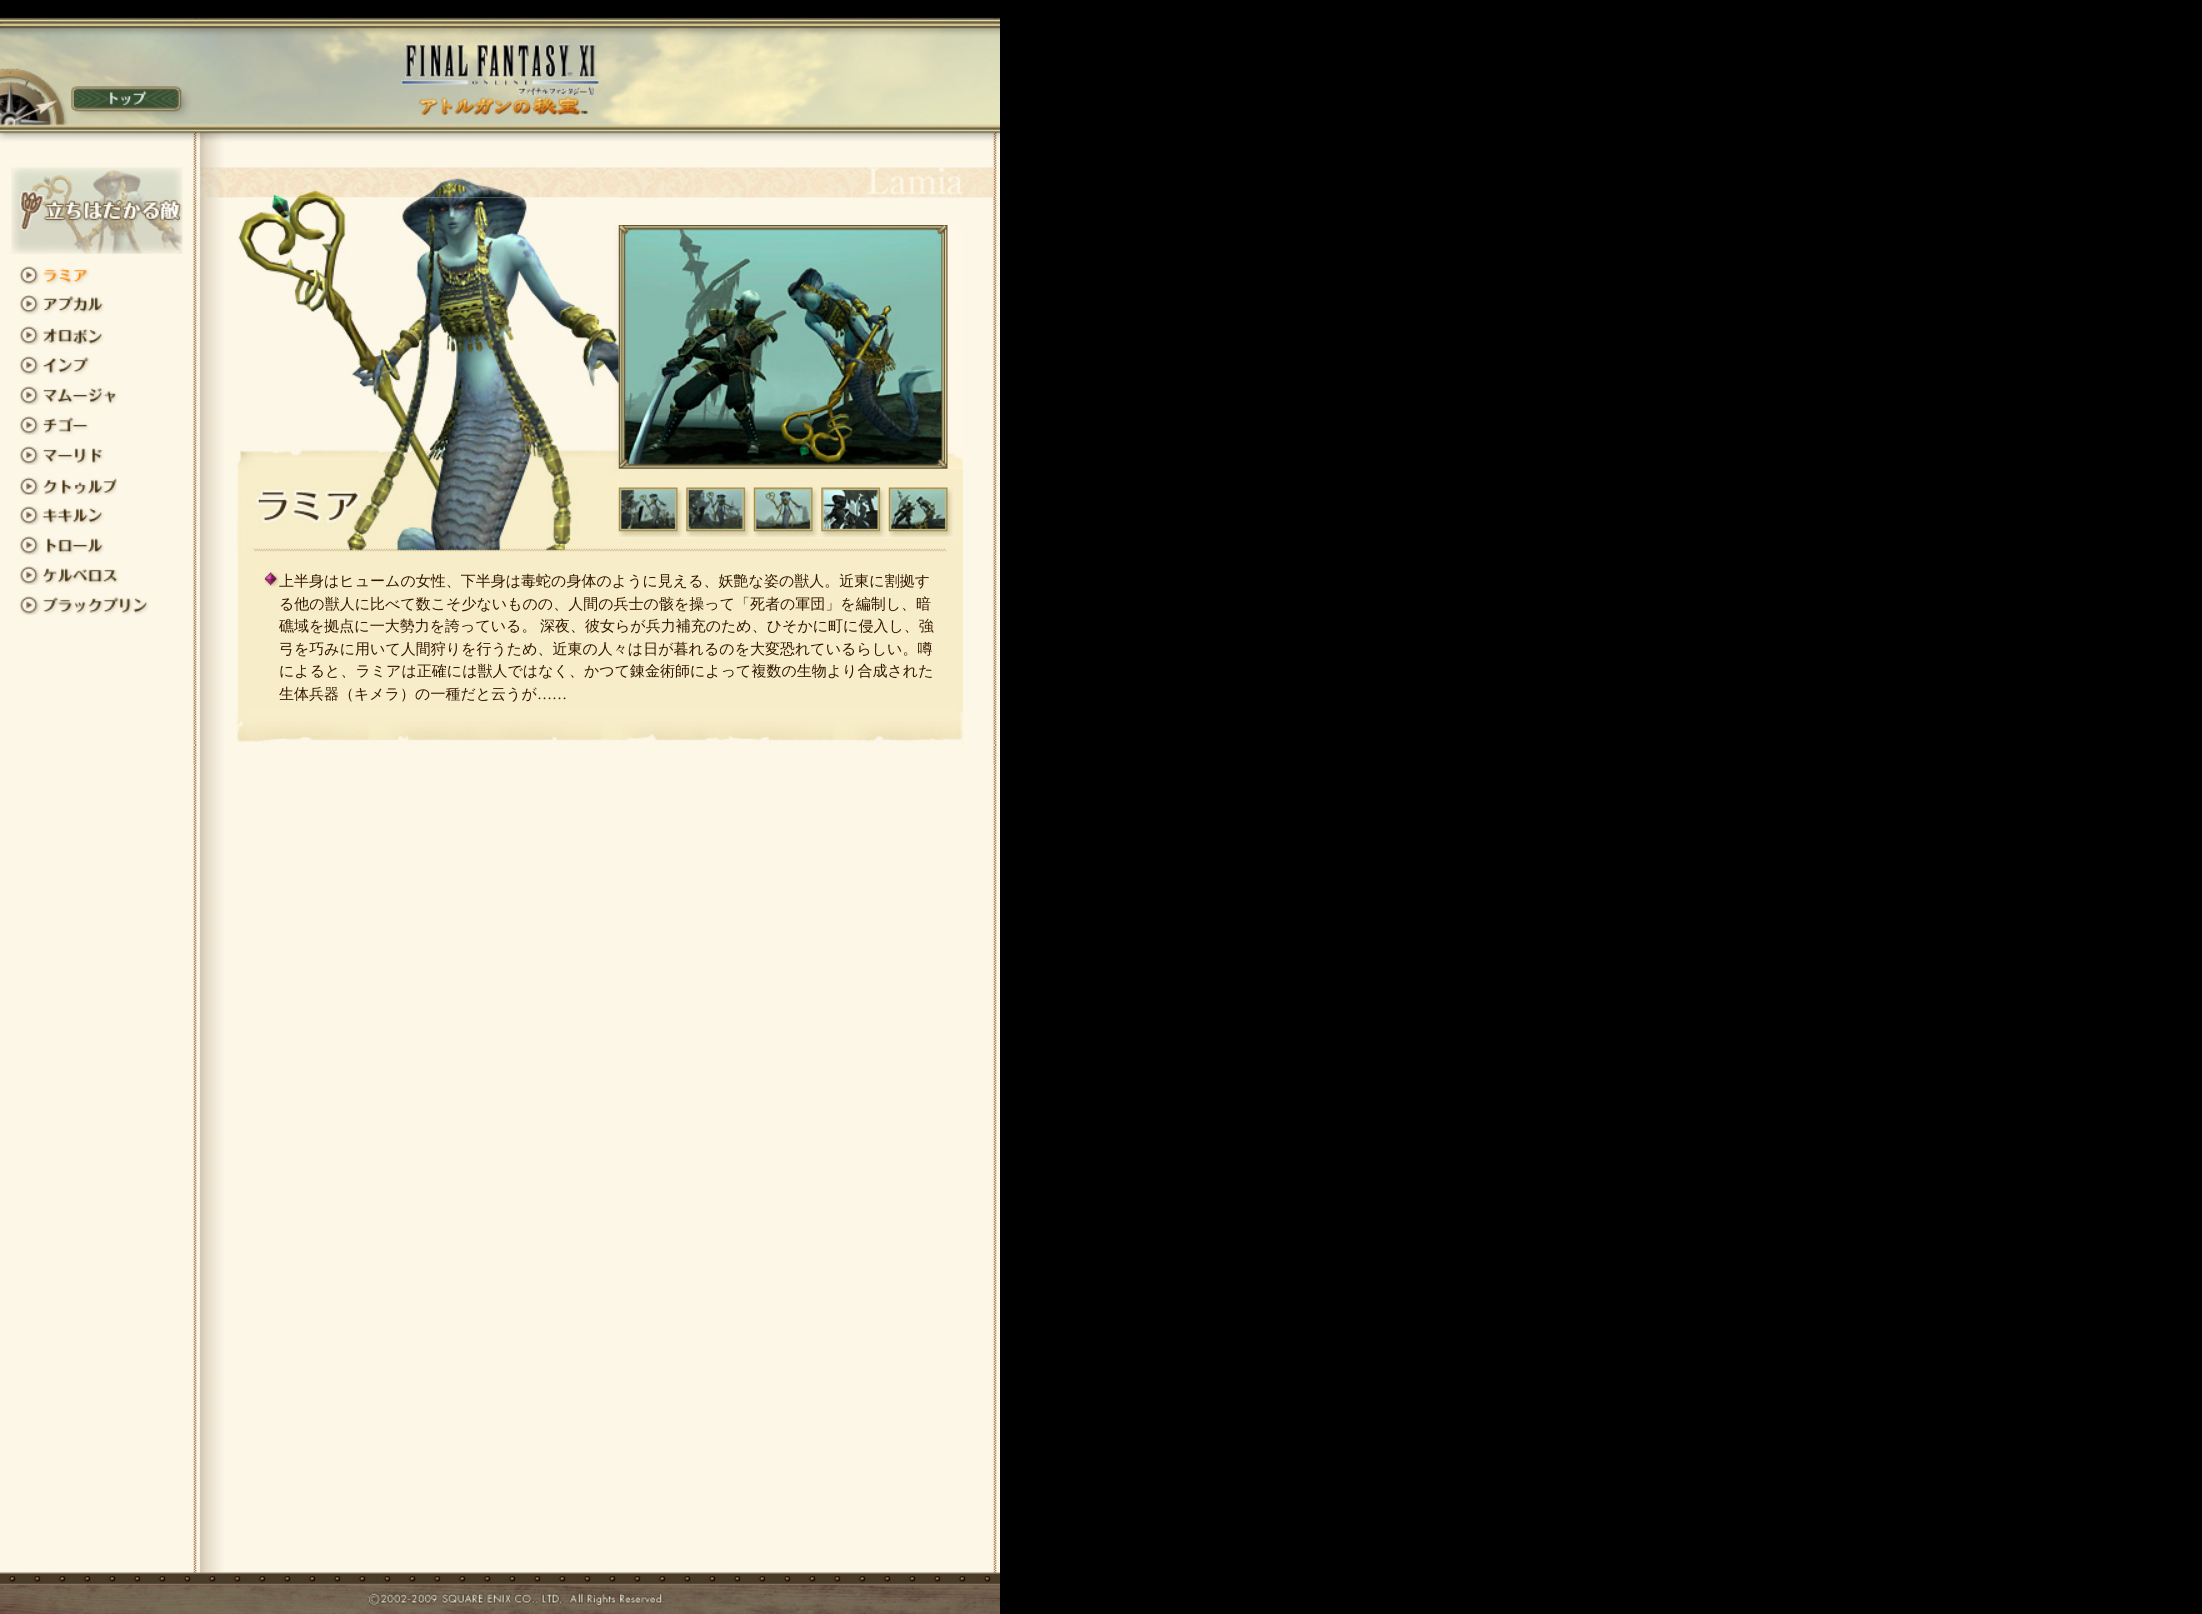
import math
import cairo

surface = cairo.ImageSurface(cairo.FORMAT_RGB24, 2202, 1614)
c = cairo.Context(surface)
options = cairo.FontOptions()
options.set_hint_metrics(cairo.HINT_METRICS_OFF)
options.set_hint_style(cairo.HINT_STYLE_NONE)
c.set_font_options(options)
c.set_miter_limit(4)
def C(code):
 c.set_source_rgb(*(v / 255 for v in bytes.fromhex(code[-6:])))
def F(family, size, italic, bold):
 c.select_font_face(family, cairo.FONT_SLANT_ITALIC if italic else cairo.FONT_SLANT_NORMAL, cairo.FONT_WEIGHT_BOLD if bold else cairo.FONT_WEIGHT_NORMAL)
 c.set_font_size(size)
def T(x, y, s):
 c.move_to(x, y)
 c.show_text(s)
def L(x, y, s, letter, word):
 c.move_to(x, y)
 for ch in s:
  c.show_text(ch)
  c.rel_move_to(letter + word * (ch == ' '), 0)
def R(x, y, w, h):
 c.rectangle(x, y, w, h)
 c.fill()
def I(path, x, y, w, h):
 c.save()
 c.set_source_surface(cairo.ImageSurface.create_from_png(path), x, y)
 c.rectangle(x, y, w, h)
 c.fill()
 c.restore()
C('000000')
c.paint()
C('fdf7e7')
R(0,18,1000,1555)
I('1.png',193,18,804,1555)
I('2.png',0,0,1000,19)
I('3.png',0,18,1000,125)
I('4.png',11,167,172,88)
I('5.png',19,266,70,19)
I('6.png',19,295,85,20)
I('7.png',19,326,85,19)
I('8.png',19,356,72,19)
I('9.png',19,386,99,19)
I('10.png',19,416,70,19)
I('11.png',19,446,85,19)
I('12.png',19,477,98,18)
I('13.png',19,506,85,19)
I('14.png',19,536,85,19)
I('15.png',19,566,100,19)
I('16.png',19,596,130,19)
I('18.png',193,197,1,355)
I('18.png',993,197,1,355)
I('17.png',193,167,805,31)
C('f7eec9')
R(238,551,725,194)
I('19.png',237,197,382,355)
I('20.png',618,225,345,244)
R(619,469,344,19)
I('21.png',618,487,69,51)
I('22.png',686,487,68,51)
I('23.png',753,487,69,51)
I('24.png',821,487,68,51)
I('25.png',888,487,68,51)
R(956,488,7,50)
R(619,538,344,11)
R(946,549,17,2)
I('26.png',618,548,329,4)
I('27.png',193,551,4,194)
I('28.png',262,570,17,17)
F('WenQuanYi Zen Hei Medium',15,0,0)
C('331500')
T(279,586,'上半身はヒュームの女性、下半身は毒蛇の身体のように見える、妖艶な姿の獣人。近東に割拠す')
T(279,609,'る他の獣人に比べて数こそ少ないものの、人間の兵士の骸を操って「死者の軍団」を編制し、暗')
L(279,631,'礁域を拠点に一大勢力を誇っている。 深夜、彼女らが兵力補充のため、ひそかに町に侵入し、強',0,-1)
T(279,654,'弓を巧みに用いて人間狩りを行うため、近東の人々は日が暮れるのを大変恐れているらしい。噂')
T(279,676,'によると、ラミアは正確には獣人ではなく、かつて錬金術師によって複数の生物より合成された')
T(279,699,'生体兵器（キメラ）の一種だと云うが')
F('Liberation Serif',15,0,0)
T(537,699,'……')
I('29.png',237,706,726,39)
I('27.png',993,551,4,194)
I('30.png',193,746,1,18)
I('30.png',993,746,1,18)
I('31.png',0,1572,1000,42)
surface.write_to_png('o.png')
